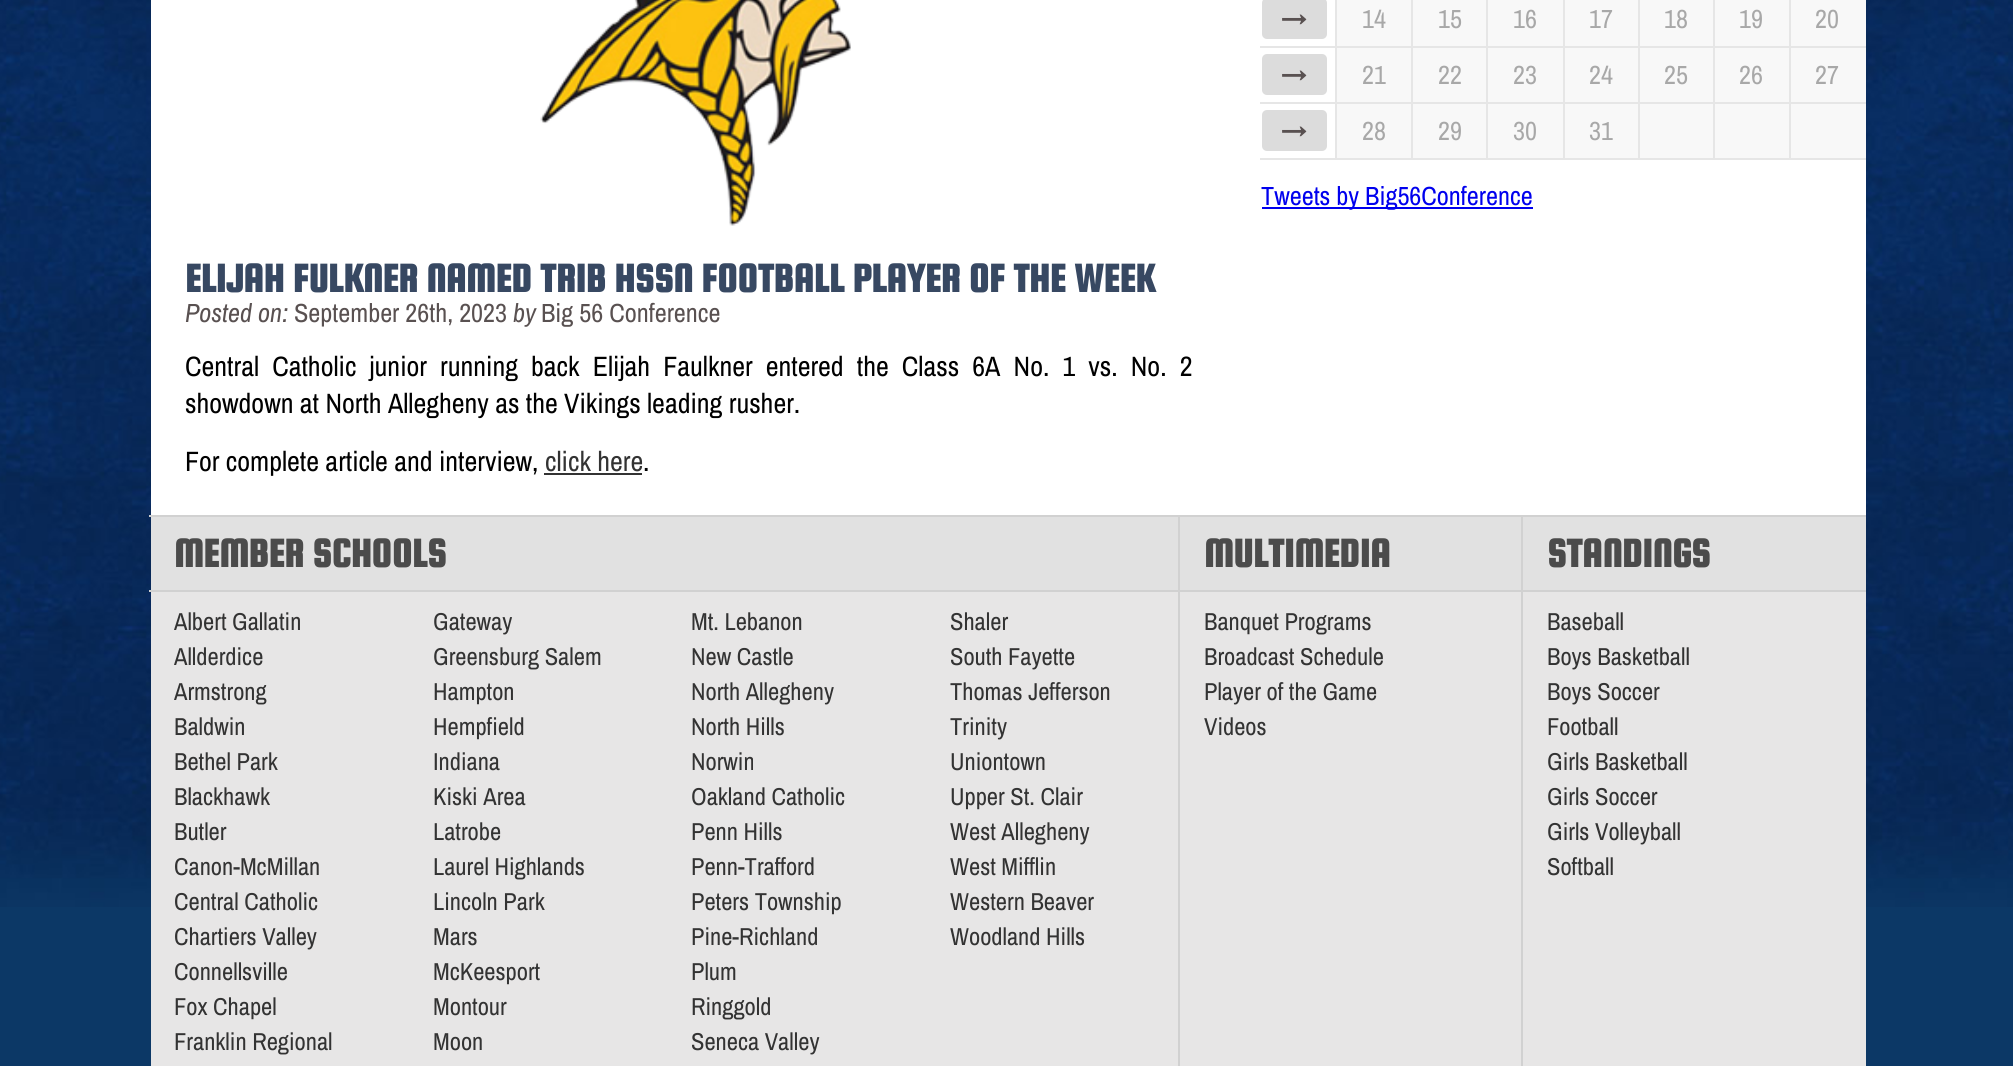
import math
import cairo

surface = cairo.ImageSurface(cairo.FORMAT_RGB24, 2013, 1066)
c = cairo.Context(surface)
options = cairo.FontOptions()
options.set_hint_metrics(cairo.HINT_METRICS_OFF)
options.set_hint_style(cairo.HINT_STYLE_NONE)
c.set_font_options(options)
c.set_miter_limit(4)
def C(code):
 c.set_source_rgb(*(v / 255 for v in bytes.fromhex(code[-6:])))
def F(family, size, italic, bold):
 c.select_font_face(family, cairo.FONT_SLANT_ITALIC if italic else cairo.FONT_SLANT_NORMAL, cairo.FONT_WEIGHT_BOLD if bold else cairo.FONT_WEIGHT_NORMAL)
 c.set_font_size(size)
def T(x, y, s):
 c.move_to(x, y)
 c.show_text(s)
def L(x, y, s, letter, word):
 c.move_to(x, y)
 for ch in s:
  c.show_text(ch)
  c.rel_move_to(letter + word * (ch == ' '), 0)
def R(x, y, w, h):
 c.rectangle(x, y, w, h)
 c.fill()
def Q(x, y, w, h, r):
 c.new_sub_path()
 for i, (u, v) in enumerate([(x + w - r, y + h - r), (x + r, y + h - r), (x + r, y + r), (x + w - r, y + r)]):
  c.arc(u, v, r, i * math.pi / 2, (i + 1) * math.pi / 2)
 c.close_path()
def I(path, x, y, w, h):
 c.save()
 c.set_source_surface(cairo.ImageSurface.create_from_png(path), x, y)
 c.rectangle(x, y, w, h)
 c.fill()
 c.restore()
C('0c3866')
c.paint()
I('1.png',0,0,2013,907)
C('ffffff')
R(151,0,1715,515)
C('e6e6e6')
R(1789,158,77,2)
R(1789,102,2,57)
R(1789,102,77,2)
R(1789,46,2,57)
R(1789,46,77,2)
R(1789,0,2,47)
R(1713,158,77,2)
R(1713,102,2,57)
R(1713,102,77,2)
R(1713,46,2,57)
R(1713,46,77,2)
R(1713,0,2,47)
R(1638,158,77,2)
R(1638,102,2,57)
R(1638,102,77,2)
R(1638,46,2,57)
R(1638,46,77,2)
R(1638,0,2,47)
R(1563,158,77,2)
R(1563,102,2,57)
R(1563,102,77,2)
R(1563,46,2,57)
R(1563,46,77,2)
R(1563,0,2,47)
R(1486,158,79,2)
R(1486,102,2,57)
R(1486,102,79,2)
R(1486,46,2,57)
R(1486,46,79,2)
R(1486,0,2,47)
R(1411,158,77,2)
R(1411,102,2,57)
R(1411,102,77,2)
R(1411,46,2,57)
R(1411,46,77,2)
R(1411,0,2,47)
R(1335,158,77,2)
R(1335,102,2,57)
R(1335,102,77,2)
R(1335,46,2,57)
R(1335,46,77,2)
R(1335,0,2,47)
R(1260,46,77,2)
C('dcdcdc')
Q(1262,-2,65,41,5)
c.fill()
F('Archivo Narrow',26.25,0,1)
C('595151')
T(1281,26,'→')
C('f8f8f8')
R(1337,0,74,46)
F('Archivo Narrow',26.25,0,0)
C('a8a8a8')
T(1362,28,'14')
C('f8f8f8')
R(1413,0,73,46)
C('a8a8a8')
T(1438,28,'15')
C('f8f8f8')
R(1488,0,75,46)
C('a8a8a8')
T(1513,28,'16')
C('f8f8f8')
R(1565,0,73,46)
C('a8a8a8')
T(1589,28,'17')
C('f8f8f8')
R(1640,0,73,46)
C('a8a8a8')
T(1664,28,'18')
C('f8f8f8')
R(1715,0,74,46)
C('a8a8a8')
T(1739,28,'19')
C('f8f8f8')
R(1791,0,75,46)
C('a8a8a8')
T(1815,28,'20')
C('e6e6e6')
R(1260,102,77,2)
C('dcdcdc')
Q(1262,54,65,41,5)
c.fill()
F('Archivo Narrow',26.25,0,1)
C('595151')
T(1281,82,'→')
C('f8f8f8')
R(1337,48,74,54)
F('Archivo Narrow',26.25,0,0)
C('a8a8a8')
T(1362,84,'21')
C('f8f8f8')
R(1413,48,73,54)
C('a8a8a8')
T(1438,84,'22')
C('f8f8f8')
R(1488,48,75,54)
C('a8a8a8')
T(1513,84,'23')
C('f8f8f8')
R(1565,48,73,54)
C('a8a8a8')
T(1589,84,'24')
C('f8f8f8')
R(1640,48,73,54)
C('a8a8a8')
T(1664,84,'25')
C('f8f8f8')
R(1715,48,74,54)
C('a8a8a8')
T(1739,84,'26')
C('f8f8f8')
R(1791,48,75,54)
C('a8a8a8')
T(1815,84,'27')
C('e6e6e6')
R(1260,158,77,2)
C('dcdcdc')
Q(1262,110,65,41,5)
c.fill()
F('Archivo Narrow',26.25,0,1)
C('595151')
T(1281,138,'→')
C('f8f8f8')
R(1337,104,74,54)
F('Archivo Narrow',26.25,0,0)
C('a8a8a8')
T(1362,140,'28')
C('f8f8f8')
R(1413,104,73,54)
C('a8a8a8')
T(1438,140,'29')
C('f8f8f8')
R(1488,104,75,54)
C('a8a8a8')
T(1513,140,'30')
C('f8f8f8')
R(1565,104,73,54)
C('a8a8a8')
T(1589,140,'31')
C('f8f8f8')
R(1640,104,73,54)
R(1715,104,74,54)
R(1791,104,75,54)
C('0000ee')
R(1262,207,271,2)
T(1261,205,'Tweets by Big56Conference')
I('2.png',540,0,311,226)
F('Squada One',42,0,1)
C('374862')
T(185,292,'ELIJAH FULKNER NAMED TRIB HSSN FOOTBALL PLAYER OF THE WEEK')
F('Archivo Narrow',26.25,1,0)
C('595151')
T(185,322,'Posted on:')
F('Archivo Narrow',26.25,0,0)
T(294,322,'September 26th, 2023')
F('Archivo Narrow',26.25,1,0)
T(513,322,'by')
F('Archivo Narrow',26.25,0,0)
T(541,322,'Big 56 Conference')
F('Archivo Narrow',28,0,0)
C('000000')
L(185,376,'Central Catholic junior running back Elijah Faulkner entered the Class 6A No. 1 vs. No. 2',0,6.75)
T(185,413,'showdown at North Allegheny as the Vikings leading rusher.')
T(185,471,'For complete article and interview,')
C('333333')
T(545,471,'click here')
R(544,473,98,2)
C('000000')
T(643,471,'.')
C('e7e6e6')
R(151,592,1715,474)
C('e1e1e1')
R(151,517,1027,73)
C('d1d1d1')
R(149,515,1717,2)
R(1521,590,2,476)
R(1521,590,345,2)
R(1521,515,2,77)
R(1178,590,2,476)
R(1178,590,345,2)
R(1178,515,2,77)
R(149,590,1031,2)
F('Squada One',42,0,1)
C('4b4b4b')
T(174,567,'MEMBER SCHOOLS')
C('e1e1e1')
R(1180,517,341,73)
C('4b4b4b')
T(1204,567,'MULTIMEDIA')
C('e1e1e1')
R(1523,517,343,73)
C('4b4b4b')
T(1547,567,'STANDINGS')
F('Archivo Narrow',24.5,0,0)
C('333333')
T(174,630,'Albert Gallatin')
T(174,665,'Allderdice')
T(174,700,'Armstrong')
T(174,735,'Baldwin')
T(174,770,'Bethel Park')
T(174,805,'Blackhawk')
T(174,840,'Butler')
T(174,875,'Canon-McMillan')
T(174,910,'Central Catholic')
T(174,945,'Chartiers Valley')
T(174,980,'Connellsville')
T(174,1015,'Fox Chapel')
T(174,1050,'Franklin Regional')
T(433,630,'Gateway')
T(433,665,'Greensburg Salem')
T(433,700,'Hampton')
T(433,735,'Hempfield')
T(433,770,'Indiana')
T(433,805,'Kiski Area')
T(433,840,'Latrobe')
T(433,875,'Laurel Highlands')
T(433,910,'Lincoln Park')
T(433,945,'Mars')
T(433,980,'McKeesport')
T(433,1015,'Montour')
T(433,1050,'Moon')
T(691,630,'Mt. Lebanon')
T(691,665,'New Castle')
T(691,700,'North Allegheny')
T(691,735,'North Hills')
T(691,770,'Norwin')
T(691,805,'Oakland Catholic')
T(691,840,'Penn Hills')
T(691,875,'Penn-Trafford')
T(691,910,'Peters Township')
T(691,945,'Pine-Richland')
T(691,980,'Plum')
T(691,1015,'Ringgold')
T(691,1050,'Seneca Valley')
T(950,630,'Shaler')
T(950,665,'South Fayette')
T(950,700,'Thomas Jefferson')
T(950,735,'Trinity')
T(950,770,'Uniontown')
T(950,805,'Upper St. Clair')
T(950,840,'West Allegheny')
T(950,875,'West Mifflin')
T(950,910,'Western Beaver')
T(950,945,'Woodland Hills')
T(1204,630,'Banquet Programs')
T(1204,665,'Broadcast Schedule')
T(1204,700,'Player of the Game')
T(1204,735,'Videos')
T(1547,630,'Baseball')
T(1547,665,'Boys Basketball')
T(1547,700,'Boys Soccer')
T(1547,735,'Football')
T(1547,770,'Girls Basketball')
T(1547,805,'Girls Soccer')
T(1547,840,'Girls Volleyball')
T(1547,875,'Softball')
surface.write_to_png('o.png')
